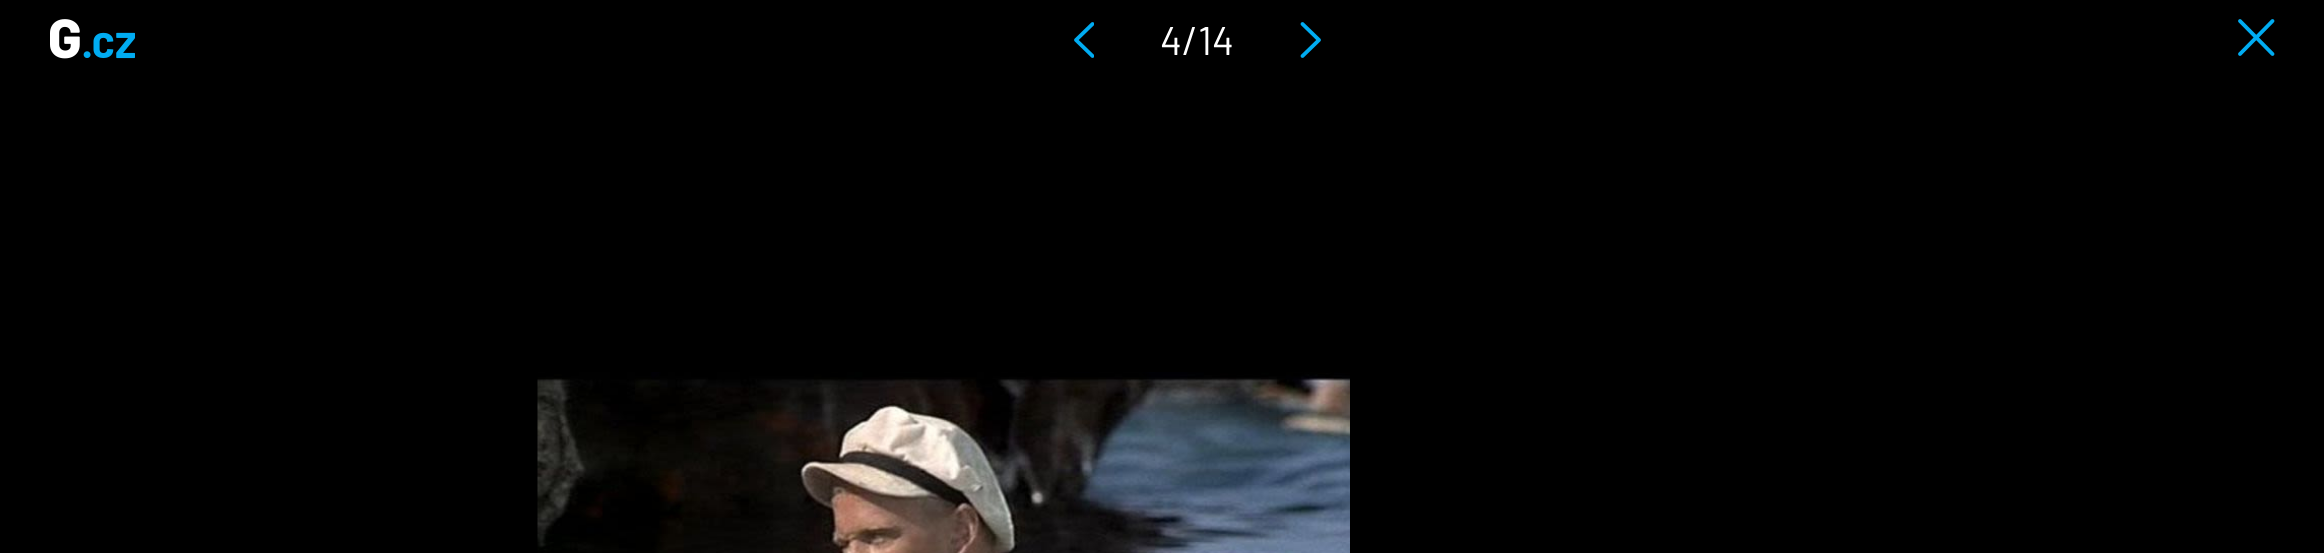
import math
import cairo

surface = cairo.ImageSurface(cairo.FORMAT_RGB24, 2324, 553)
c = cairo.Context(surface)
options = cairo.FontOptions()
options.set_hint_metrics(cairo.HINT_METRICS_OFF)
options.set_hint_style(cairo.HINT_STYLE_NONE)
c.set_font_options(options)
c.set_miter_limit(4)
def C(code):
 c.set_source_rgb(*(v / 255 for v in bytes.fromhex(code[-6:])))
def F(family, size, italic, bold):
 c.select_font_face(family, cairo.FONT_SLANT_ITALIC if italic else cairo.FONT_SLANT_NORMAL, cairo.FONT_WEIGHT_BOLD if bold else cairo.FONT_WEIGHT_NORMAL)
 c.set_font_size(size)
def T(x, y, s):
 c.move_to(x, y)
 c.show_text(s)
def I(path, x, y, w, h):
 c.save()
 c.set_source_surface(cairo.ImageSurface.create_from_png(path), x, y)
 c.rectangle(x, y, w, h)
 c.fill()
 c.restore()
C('000000')
c.paint()
I('1.png',50,19,85,40)
c.save()
c.rectangle(1073,21,21,38)
c.clip()
c.new_path()
c.move_to(1092.5,56)
c.line_to(1076,40)
c.line_to(1092.5,24)
C('00acf2')
c.set_line_width(3.8)
c.set_line_cap(cairo.LINE_CAP_ROUND)
c.set_line_join(cairo.LINE_JOIN_ROUND)
c.stroke()
c.restore()
F('Barlow',40,0,0)
C('ffffff')
T(1160,55,'4/14')
c.new_path()
c.move_to(1302.5,24)
c.line_to(1319,40)
c.line_to(1302.5,56)
C('00acf2')
c.set_line_width(3.8)
c.set_line_cap(cairo.LINE_CAP_ROUND)
c.set_line_join(cairo.LINE_JOIN_ROUND)
c.stroke()
c.new_path()
c.move_to(2272.5,54)
c.line_to(2240,21)
c.move_to(2240,54)
c.line_to(2272.5,21)
c.set_line_join(cairo.LINE_JOIN_MITER)
c.stroke()
I('2.png',537,372,813,181)
surface.write_to_png('o.png')
